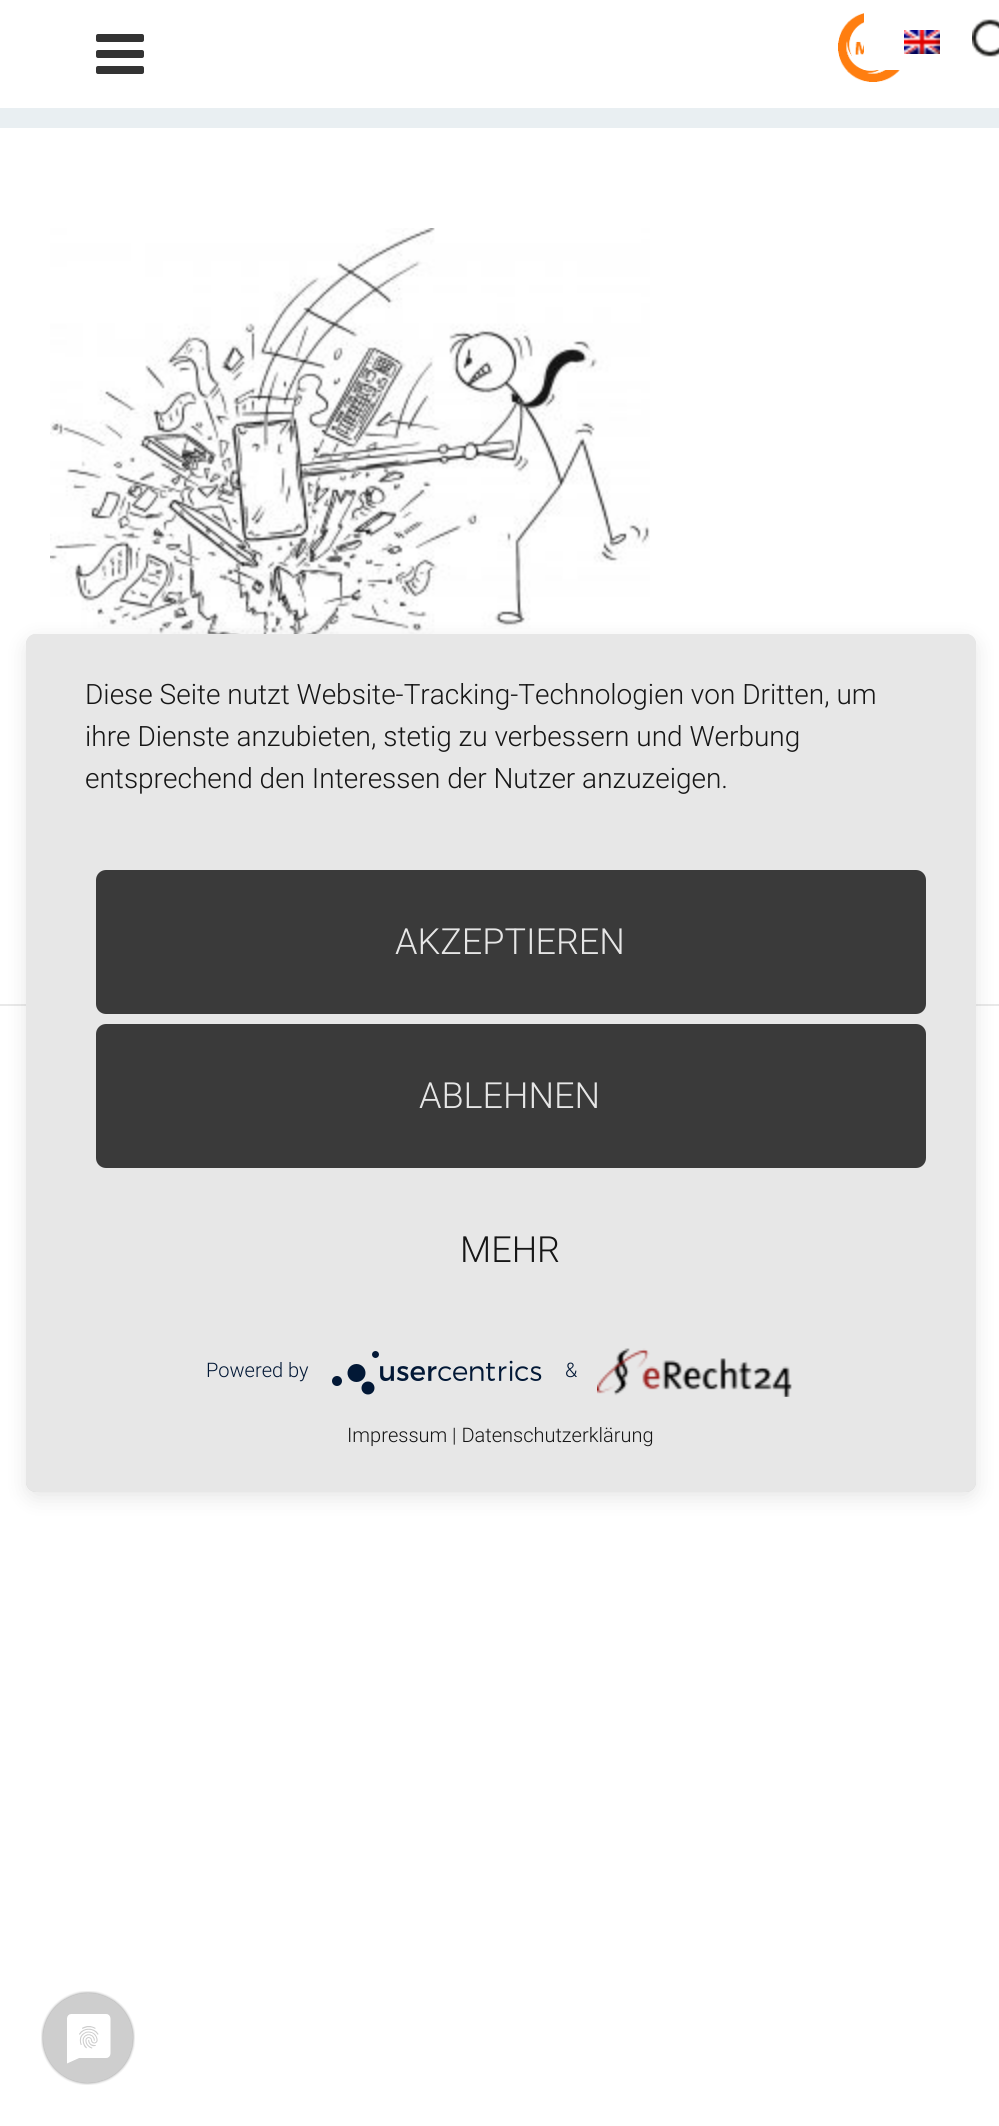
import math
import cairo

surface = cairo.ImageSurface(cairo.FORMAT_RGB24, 999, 2126)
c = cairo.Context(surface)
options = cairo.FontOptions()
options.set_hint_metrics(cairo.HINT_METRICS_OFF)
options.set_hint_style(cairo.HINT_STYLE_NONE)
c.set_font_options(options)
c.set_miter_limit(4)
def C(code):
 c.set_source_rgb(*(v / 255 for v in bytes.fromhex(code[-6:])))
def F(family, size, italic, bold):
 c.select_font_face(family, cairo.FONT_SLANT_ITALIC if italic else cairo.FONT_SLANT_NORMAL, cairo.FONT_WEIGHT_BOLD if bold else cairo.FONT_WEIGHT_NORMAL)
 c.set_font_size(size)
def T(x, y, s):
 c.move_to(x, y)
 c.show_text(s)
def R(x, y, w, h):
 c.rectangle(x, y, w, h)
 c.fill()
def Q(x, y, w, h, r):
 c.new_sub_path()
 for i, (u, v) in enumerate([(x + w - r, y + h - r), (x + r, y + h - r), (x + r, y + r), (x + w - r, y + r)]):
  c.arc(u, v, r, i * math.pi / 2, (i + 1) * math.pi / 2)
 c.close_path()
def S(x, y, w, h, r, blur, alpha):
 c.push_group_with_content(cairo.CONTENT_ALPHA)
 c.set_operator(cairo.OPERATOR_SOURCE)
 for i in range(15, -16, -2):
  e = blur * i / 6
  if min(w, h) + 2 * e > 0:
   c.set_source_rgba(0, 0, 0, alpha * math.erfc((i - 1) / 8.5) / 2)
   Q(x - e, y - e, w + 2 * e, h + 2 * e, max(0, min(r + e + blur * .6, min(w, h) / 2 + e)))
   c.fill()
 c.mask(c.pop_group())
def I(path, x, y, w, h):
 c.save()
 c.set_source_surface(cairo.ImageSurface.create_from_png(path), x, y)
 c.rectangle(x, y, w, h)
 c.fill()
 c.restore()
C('ffffff')
c.paint()
I('1.png',838,13,62,69)
C('e9eff2')
R(0,108,999,20)
C('333333')
Q(96,50,48,8,2)
c.fill()
Q(96,34,48,8,2)
c.fill()
Q(96,66,48,8,2)
c.fill()
C('ffffff')
R(864,13,36,57)
I('2.png',904,30,36,24)
I('3.png',972,19,27,38)
I('4.png',50,228,600,406)
C('e9e9e9')
R(0,1004,999,2)
C('000000')
S(26,640,950,858,10,10,.1)
c.save()
Q(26,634,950,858,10)
c.clip()
S(26,646,950,858,0,36,.3)
c.restore()
C('e7e7e7')
Q(26,634,950,858,10)
c.fill()
F('Roboto Light',28,0,0)
C('161616')
T(85,704,'Diese Seite nutzt Website-Tracking-Technologien von Dritten, um')
T(85,746,'ihre Dienste anzubieten, stetig zu verbessern und Werbung')
T(85,788,'entsprechend den Interessen der Nutzer anzuzeigen.')
C('3a3a3a')
Q(96,870,830,144,10)
c.fill()
F('Roboto Light',36,0,0)
C('e6e6e6')
T(395,954,'AKZEPTIEREN')
C('3a3a3a')
Q(96,1024,830,144,10)
c.fill()
C('e6e6e6')
T(419,1108,'ABLEHNEN')
C('161616')
T(460,1262,'MEHR')
F('Roboto Light',20,0,0)
C('021836')
T(206,1377,'Powered by')
I('5.png',332,1351,210,44)
T(565,1377,'&')
I('6.png',597,1348,195,49)
C('161616')
T(347,1442,'Impressum | Datenschutzerklärung')
I('7.png',41,1991,94,94)
surface.write_to_png('o.png')
